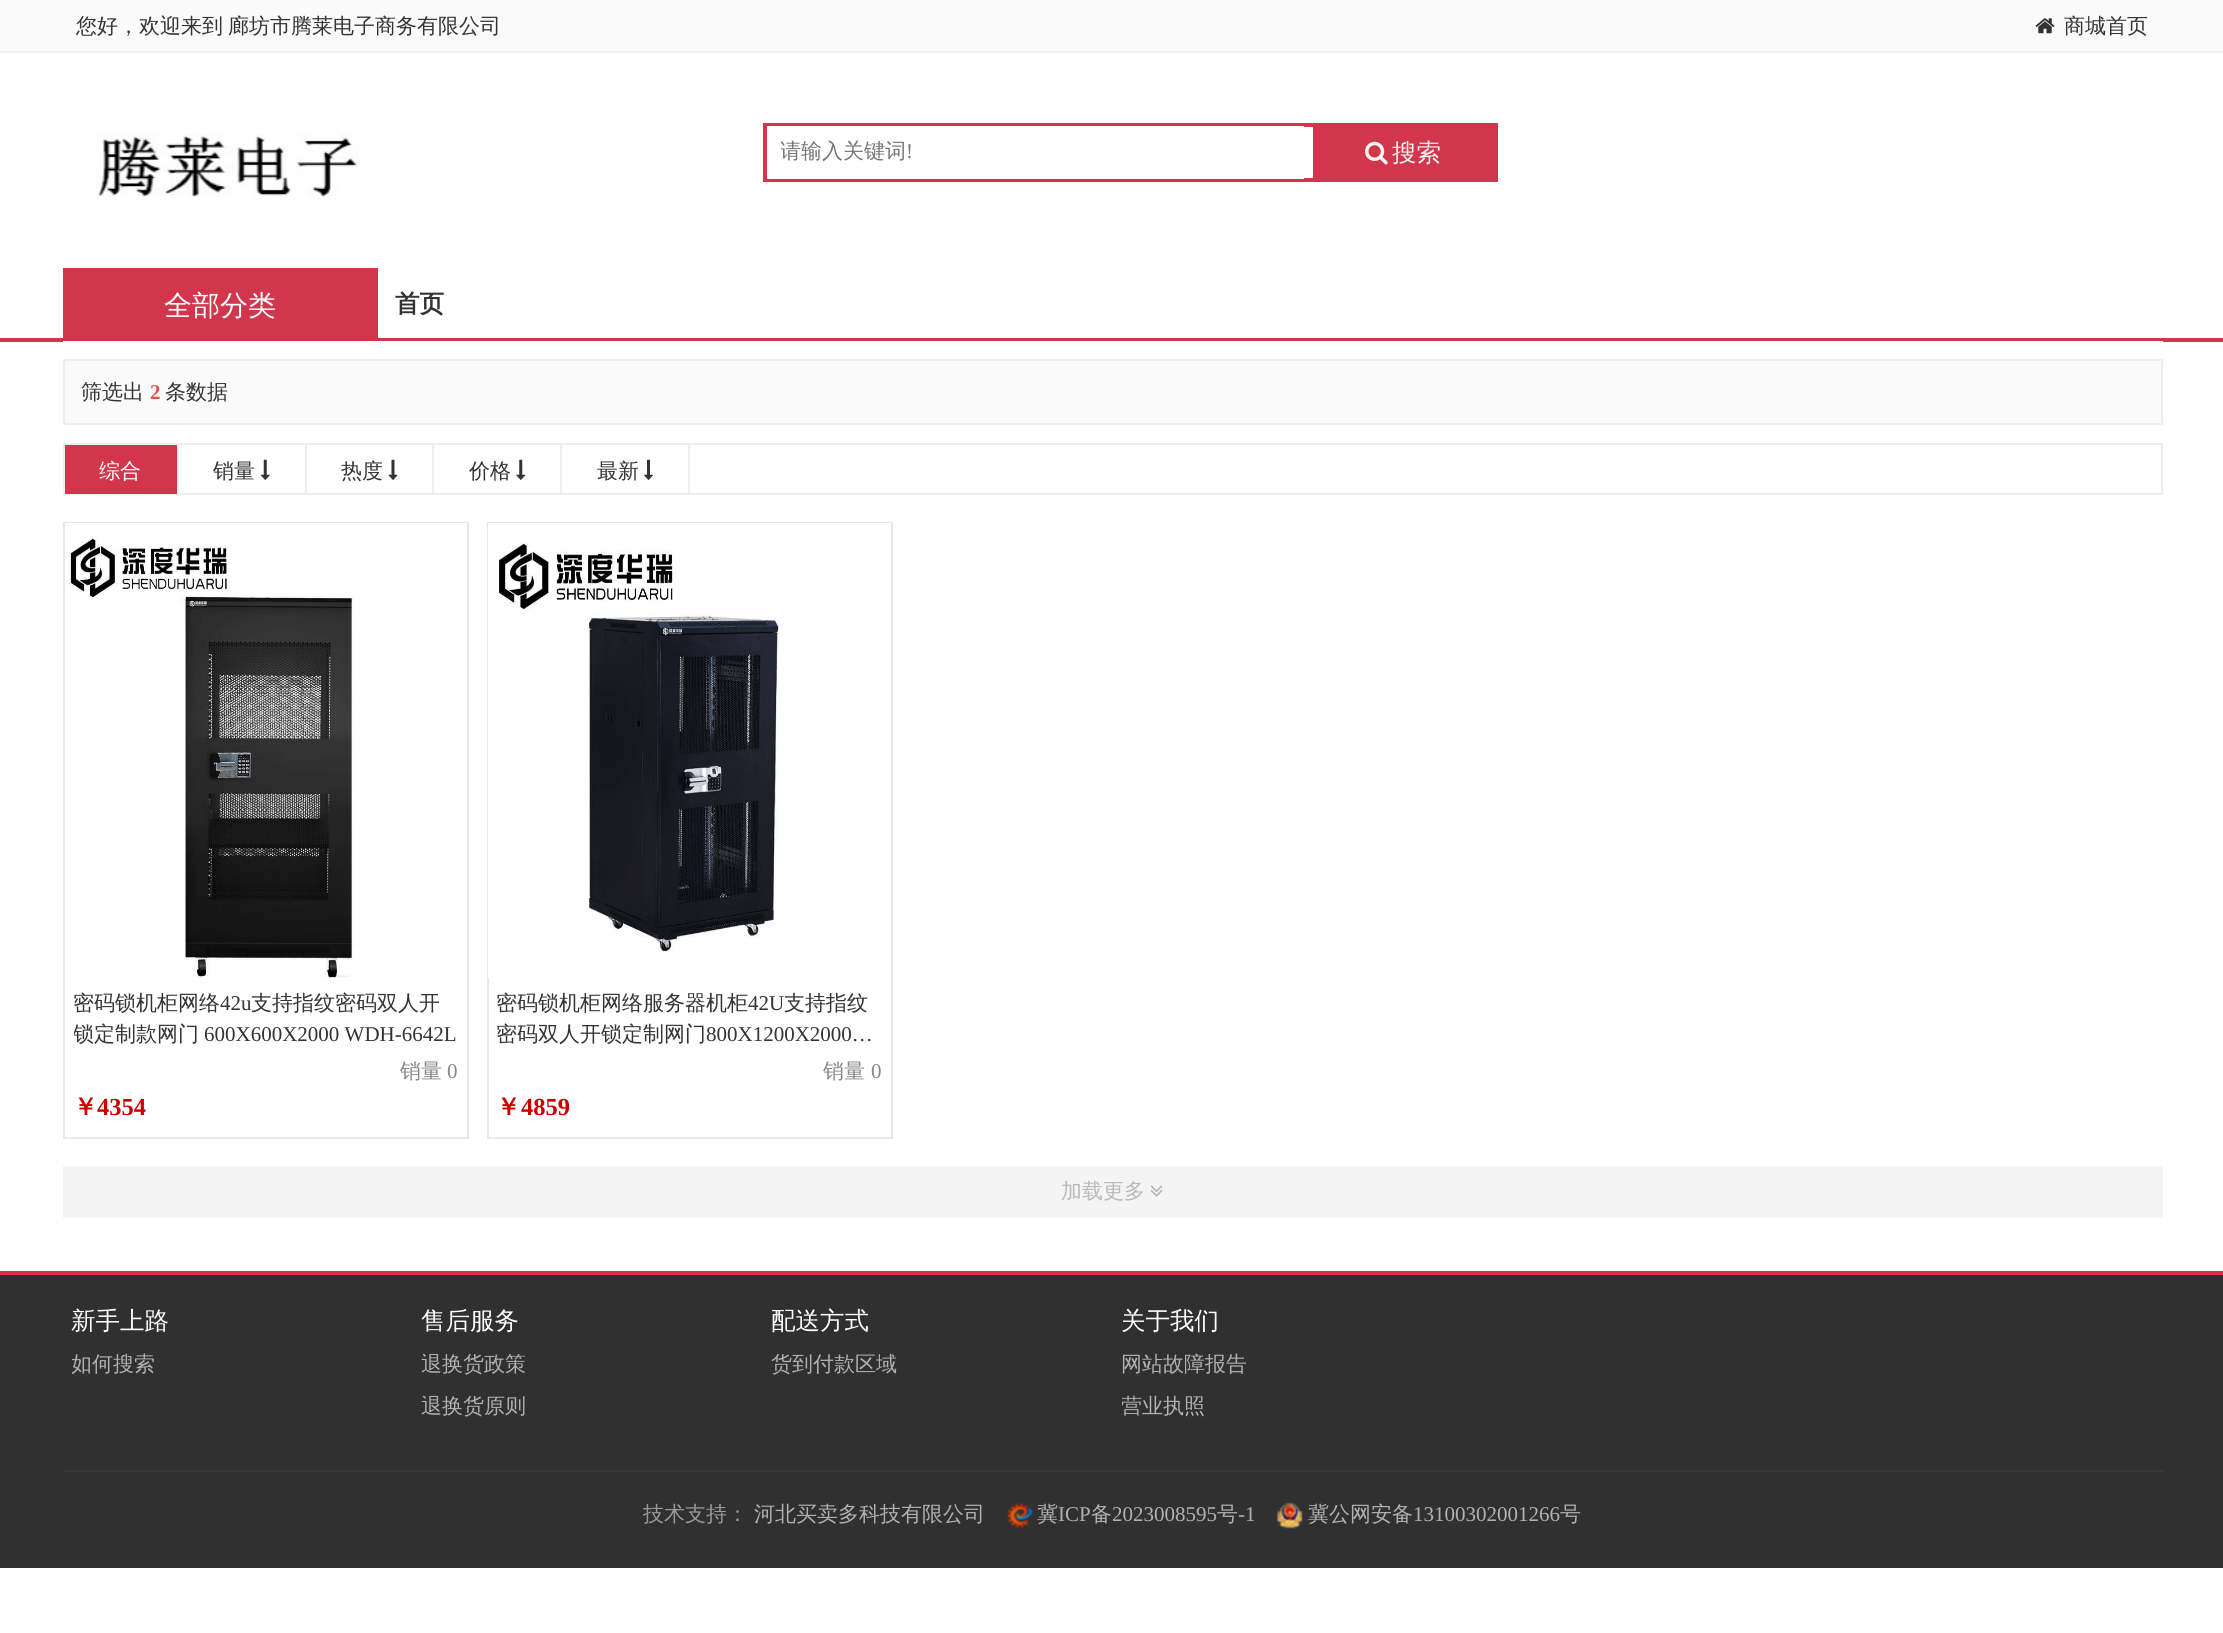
import math
import cairo

surface = cairo.ImageSurface(cairo.FORMAT_RGB24, 2223, 1633)
c = cairo.Context(surface)
options = cairo.FontOptions()
options.set_hint_metrics(cairo.HINT_METRICS_OFF)
options.set_hint_style(cairo.HINT_STYLE_NONE)
c.set_font_options(options)
c.set_miter_limit(4)
def C(code):
 c.set_source_rgb(*(v / 255 for v in bytes.fromhex(code[-6:])))
def F(family, size, italic, bold):
 c.select_font_face(family, cairo.FONT_SLANT_ITALIC if italic else cairo.FONT_SLANT_NORMAL, cairo.FONT_WEIGHT_BOLD if bold else cairo.FONT_WEIGHT_NORMAL)
 c.set_font_size(size)
def T(x, y, s):
 c.move_to(x, y)
 c.show_text(s)
def R(x, y, w, h):
 c.rectangle(x, y, w, h)
 c.fill()
def I(path, x, y, w, h):
 c.save()
 c.set_source_surface(cairo.ImageSurface.create_from_png(path), x, y)
 c.rectangle(x, y, w, h)
 c.fill()
 c.restore()
C('ffffff')
c.paint()
C('fafafa')
R(0,0,2223,51)
C('f0f0f0')
R(0,51,2223,2)
F('WenQuanYi Zen Hei Medium',21,0,0)
C('333333')
T(76,33,'您好，欢迎来到')
T(228,33,'廊坊市腾莱电子商务有限公司')
I('1.png',2035,18,20,16)
T(2064,33,'商城首页')
I('2.png',96,133,263,64)
c.rectangle(765,125,731,55)
C('d2364c')
c.set_line_width(4)
c.stroke()
C('ffffff')
R(767,126,537,53)
c.save()
c.rectangle(781,138,519,30)
c.clip()
C('757575')
T(780,158,'请输入关键词')
c.restore()
F('Liberation Serif',21,0,0)
C('757575')
T(906,158,'!')
C('d2364c')
R(1313,127,181,51)
I('3.png',1365,141,23,24)
F('WenQuanYi Zen Hei Medium',24.5,0,0)
C('f5f5f2')
T(1392,161,'搜索')
C('d2364c')
R(63,268,315,70)
F('WenQuanYi Zen Hei Medium',28,0,0)
C('ffffff')
T(164,315,'全部分类')
C('d2364c')
R(0,338,2223,4)
F('WenQuanYi Zen Hei',24.5,0,1)
C('333333')
T(395,312,'首页')
C('ffffff')
R(63,341,2100,1)
C('fafafa')
c.rectangle(64,360,2098,64)
c.fill_preserve()
C('eeeeee')
c.set_line_width(2)
c.stroke()
F('WenQuanYi Zen Hei Medium',21,0,0)
C('333333')
T(81,399,'筛选出')
F('Liberation Serif',21,0,1)
C('dd514c')
T(150,399,'2')
F('WenQuanYi Zen Hei Medium',21,0,0)
C('333333')
T(165,399,'条数据')
c.rectangle(64,444,2098,50)
C('eeeeee')
c.stroke()
C('d2354c')
R(65,445,112,49)
C('eeeeee')
R(177,445,2,49)
C('ffffff')
T(99,478,'综合')
C('eeeeee')
R(305,445,2,49)
C('333333')
T(213,478,'销量')
I('4.png',260,459,10,21)
C('eeeeee')
R(432,445,2,49)
C('333333')
T(341,478,'热度')
I('5.png',388,459,10,21)
C('eeeeee')
R(560,445,2,49)
C('333333')
T(469,478,'价格')
I('6.png',516,459,10,21)
C('eeeeee')
R(688,445,2,49)
C('333333')
T(597,478,'最新')
I('7.png',644,459,9,21)
c.rectangle(64,523,404,615)
C('e8e8e8')
c.stroke()
I('8.png',65,523,402,455)
C('333333')
T(73,1010,'密码锁机柜网络')
F('Liberation Serif',21,0,0)
T(220,1010,'42u')
F('WenQuanYi Zen Hei Medium',21,0,0)
T(251,1010,'支持指纹密码双人开')
c.save()
c.rectangle(74,987,385,60)
c.clip()
T(73,1041,'锁定制款网门')
c.restore()
F('Liberation Serif',21,0,0)
T(204,1041,'600X600X2000 WDH-6642L')
F('WenQuanYi Zen Hei Medium',21,0,0)
C('888888')
T(400,1078,'销量')
F('Liberation Serif',21,0,0)
T(447,1078,'0')
F('WenQuanYi Zen Hei',24.5,0,1)
C('cc0000')
T(73,1115,'￥')
F('Liberation Serif',24.5,0,1)
T(97,1115,'4354')
c.rectangle(488,523,404,615)
C('e8e8e8')
c.stroke()
I('9.png',488,523,403,456)
F('WenQuanYi Zen Hei Medium',21,0,0)
C('333333')
T(496,1010,'密码锁机柜网络服务器机柜')
F('Liberation Serif',21,0,0)
T(748,1010,'42U')
F('WenQuanYi Zen Hei Medium',21,0,0)
T(784,1010,'支持指纹')
T(496,1041,'密码双人开锁定制网门')
F('Liberation Serif',21,0,0)
T(706,1041,'800X1200X2000…')
F('WenQuanYi Zen Hei Medium',21,0,0)
C('888888')
T(823,1078,'销量')
F('Liberation Serif',21,0,0)
T(871,1078,'0')
F('WenQuanYi Zen Hei',24.5,0,1)
C('cc0000')
T(496,1115,'￥')
F('Liberation Serif',24.5,0,1)
T(521,1115,'4859')
C('f4f4f4')
R(63,1166,2100,52)
F('WenQuanYi Zen Hei Medium',21,0,0)
C('bababa')
T(1061,1198,'加载更多')
I('10.png',1150,1185,13,12)
C('303030')
R(0,1275,2223,293)
C('d2364c')
R(0,1271,2223,4)
F('WenQuanYi Zen Hei Medium',24.5,0,0)
C('ffffff')
T(71,1329,'新手上路')
c.save()
c.rectangle(72,1342,332,42)
c.clip()
F('WenQuanYi Zen Hei Medium',21,0,0)
C('b1b1b1')
T(71,1371,'如何搜索')
c.restore()
T(421,1329,'售后服务')
F('WenQuanYi Zen Hei Medium',21,0,0)
C('b1b1b1')
T(421,1371,'退换货政策')
T(421,1413,'退换货原则')
F('WenQuanYi Zen Hei Medium',24.5,0,0)
C('ffffff')
T(771,1329,'配送方式')
F('WenQuanYi Zen Hei Medium',21,0,0)
C('b1b1b1')
T(771,1371,'货到付款区域')
F('WenQuanYi Zen Hei Medium',24.5,0,0)
C('ffffff')
T(1121,1329,'关于我们')
F('WenQuanYi Zen Hei Medium',21,0,0)
C('b1b1b1')
T(1121,1371,'网站故障报告')
c.save()
c.rectangle(1122,1384,332,42)
c.clip()
T(1121,1413,'营业执照')
c.restore()
C('383838')
R(63,1470,2100,2)
C('999999')
T(643,1521,'技术支持：')
C('b1b1b1')
T(754,1521,'河北买卖多科技有限公司')
I('11.png',1007,1502,27,27)
T(1037,1521,'冀')
F('Liberation Serif',21,0,0)
T(1058,1521,'ICP')
F('WenQuanYi Zen Hei Medium',21,0,0)
T(1091,1521,'备')
F('Liberation Serif',21,0,0)
T(1112,1521,'2023008595')
F('WenQuanYi Zen Hei Medium',21,0,0)
T(1217,1521,'号')
F('Liberation Serif',21,0,0)
T(1238,1521,'-1')
I('12.png',1277,1502,26,27)
F('WenQuanYi Zen Hei Medium',21,0,0)
T(1308,1521,'冀公网安备')
F('Liberation Serif',21,0,0)
T(1413,1521,'13100302001266')
F('WenQuanYi Zen Hei Medium',21,0,0)
T(1560,1521,'号')
surface.write_to_png('o.png')
